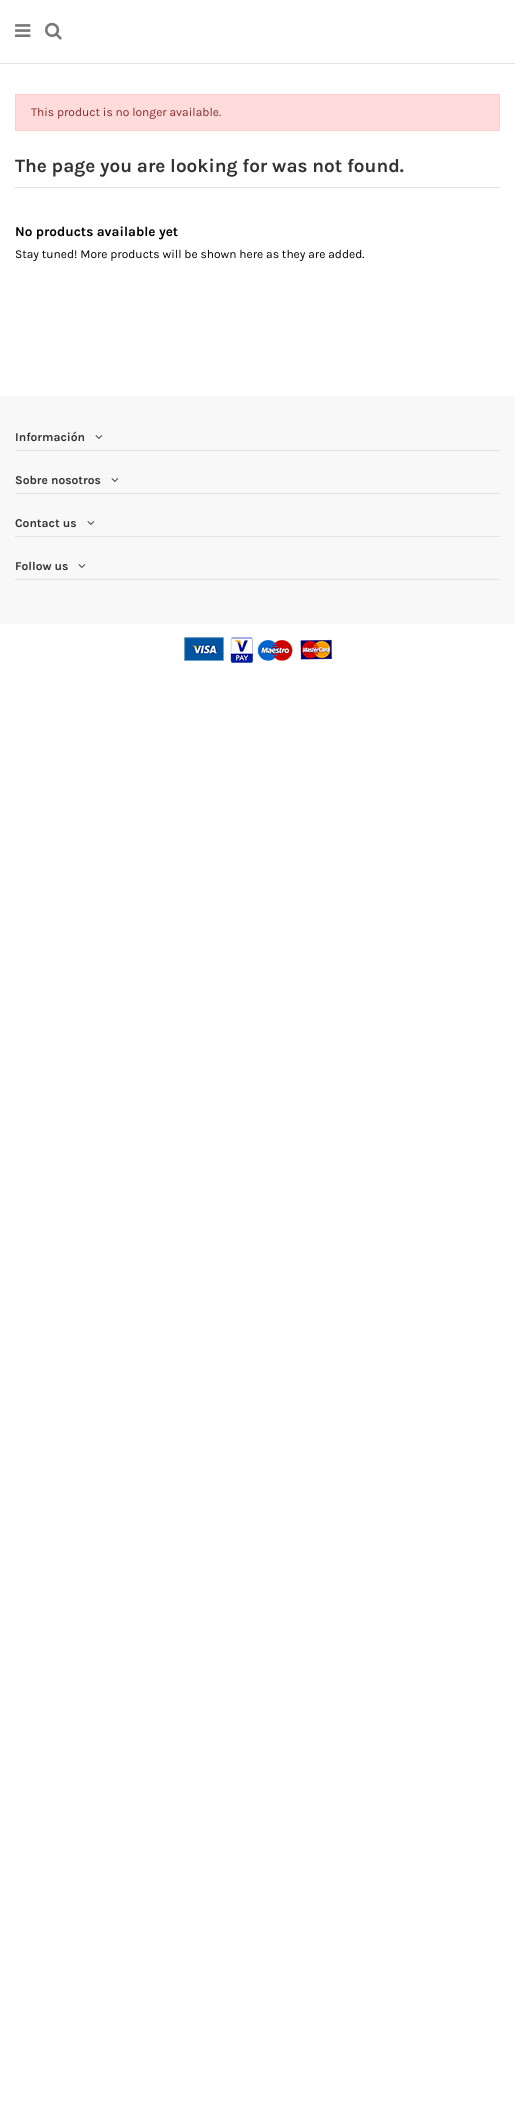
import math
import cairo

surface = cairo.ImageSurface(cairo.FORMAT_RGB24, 515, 2113)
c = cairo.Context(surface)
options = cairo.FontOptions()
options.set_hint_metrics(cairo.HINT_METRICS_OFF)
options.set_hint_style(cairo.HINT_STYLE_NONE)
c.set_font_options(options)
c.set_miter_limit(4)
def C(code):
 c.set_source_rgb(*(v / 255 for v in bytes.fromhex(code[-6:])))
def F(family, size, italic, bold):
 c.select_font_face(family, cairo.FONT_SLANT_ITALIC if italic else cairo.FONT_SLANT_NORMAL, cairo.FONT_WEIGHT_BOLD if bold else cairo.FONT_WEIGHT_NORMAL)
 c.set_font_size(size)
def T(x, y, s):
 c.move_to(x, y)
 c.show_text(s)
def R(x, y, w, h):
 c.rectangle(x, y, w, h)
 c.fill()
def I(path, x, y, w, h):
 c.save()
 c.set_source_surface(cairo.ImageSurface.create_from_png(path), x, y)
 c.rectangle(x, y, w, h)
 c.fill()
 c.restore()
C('ffffff')
c.paint()
C('e3e3e3')
R(0,63,515,1)
I('1.png',15,24,16,13)
I('2.png',45,22,17,18)
C('ffdbdb')
c.rectangle(15.5,94.5,484,36)
c.fill_preserve()
C('ffcdcd')
c.set_line_width(1)
c.stroke()
F('Karla',12,0,0)
C('852828')
T(31,116,'This product is no longer available.')
C('e3e3e3')
R(15,187,485,1)
F('Karla',18.9,0,1)
C('333333')
T(15,172,'The page you are looking for was not found.')
F('Karla',13.5,0,1)
C('000000')
T(15,236,'No products available yet')
F('Karla',12,0,0)
T(15,258,'Stay tuned! More products will be shown here as they are added.')
C('f8f8f8')
R(0,396,515,228)
C('e3e3e3')
R(15,450,485,1)
F('Karla',12,0,1)
C('333333')
T(15,441,'Información')
I('3.png',95,435,8,4)
C('e3e3e3')
R(15,493,485,1)
C('333333')
T(15,484,'Sobre nosotros')
I('3.png',111,478,8,4)
C('e3e3e3')
R(15,536,485,1)
C('333333')
T(15,527,'Contact us')
I('3.png',87,521,8,4)
C('e3e3e3')
R(15,579,485,1)
C('333333')
T(15,570,'Follow us')
I('3.png',78,564,8,4)
I('4.png',184,637,148,26)
surface.write_to_png('o.png')
